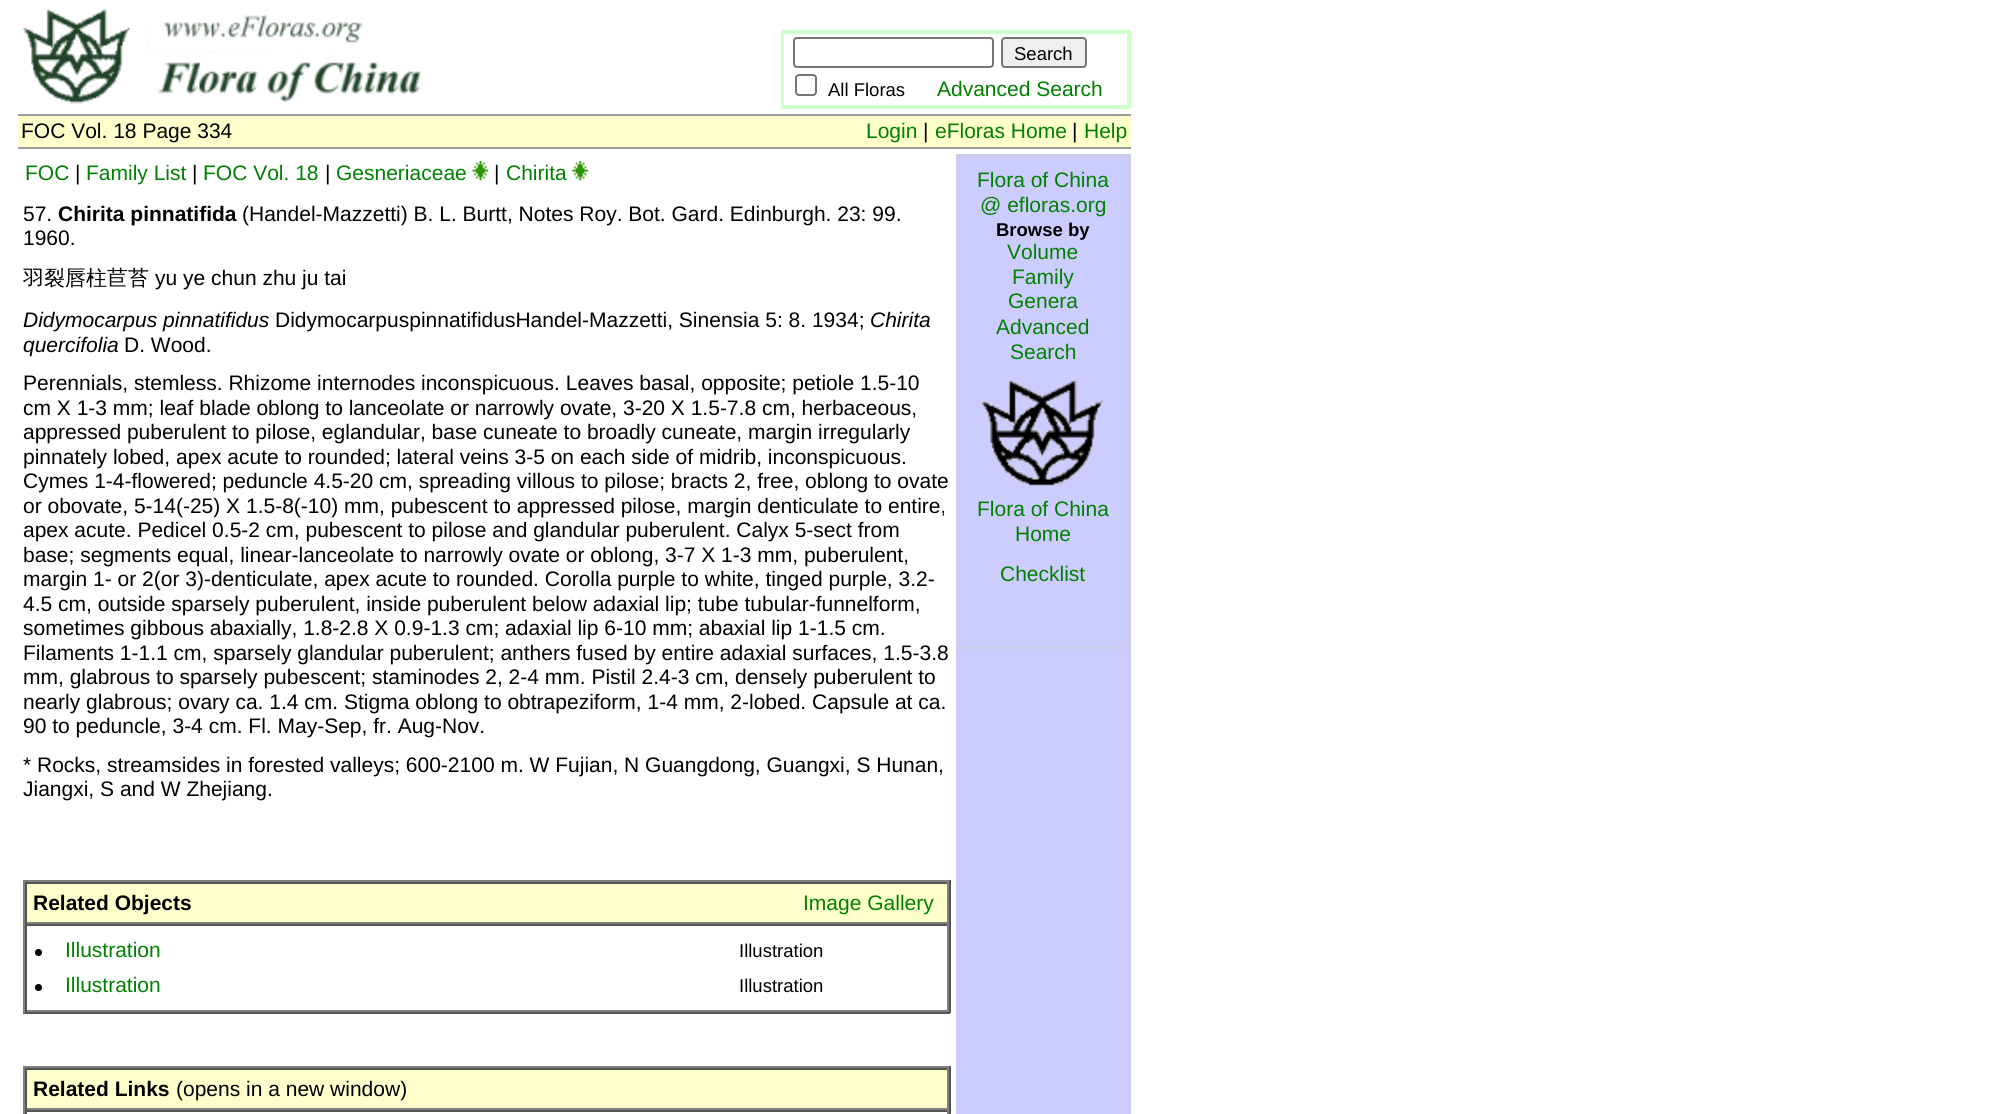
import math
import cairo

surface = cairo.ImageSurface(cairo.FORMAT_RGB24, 1998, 1114)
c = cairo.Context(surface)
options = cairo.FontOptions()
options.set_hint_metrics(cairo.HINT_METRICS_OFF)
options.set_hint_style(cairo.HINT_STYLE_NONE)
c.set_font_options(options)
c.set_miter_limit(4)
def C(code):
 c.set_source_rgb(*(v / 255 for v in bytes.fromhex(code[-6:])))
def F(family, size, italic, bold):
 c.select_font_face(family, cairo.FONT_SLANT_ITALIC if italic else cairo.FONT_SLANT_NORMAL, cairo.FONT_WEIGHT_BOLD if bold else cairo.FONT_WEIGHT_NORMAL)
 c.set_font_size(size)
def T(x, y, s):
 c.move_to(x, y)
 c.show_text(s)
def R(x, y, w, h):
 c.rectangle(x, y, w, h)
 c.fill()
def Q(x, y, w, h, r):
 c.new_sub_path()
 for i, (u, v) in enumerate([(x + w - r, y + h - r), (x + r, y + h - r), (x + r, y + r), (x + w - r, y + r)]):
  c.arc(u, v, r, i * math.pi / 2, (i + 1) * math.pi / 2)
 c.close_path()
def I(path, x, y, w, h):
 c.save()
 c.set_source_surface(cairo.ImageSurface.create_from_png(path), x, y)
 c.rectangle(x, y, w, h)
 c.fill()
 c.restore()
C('ffffff')
c.paint()
I('1.png',22,8,399,96)
c.rectangle(782,31,348,77)
C('ccffcc')
c.stroke()
c.rectangle(783,33,345,73)
c.stroke()
Q(794,38,199,29,3)
C('767676')
c.stroke()
C('efefef')
Q(1002,38,84,29,3)
c.fill_preserve()
C('767676')
c.stroke()
F('Liberation Sans',18.5,0,0)
C('000000')
T(1014,60,'Search')
Q(796,75,20,20,3)
C('767676')
c.stroke()
C('000000')
T(828,96,'All Floras')
F('Liberation Sans',21,0,0)
C('008000')
T(937,96,'Advanced Search')
C('999999')
R(18,114,1113,2)
C('ffffcc')
R(18,116,1113,31)
C('000000')
T(21,138,'FOC Vol. 18 Page 334')
C('008000')
T(866,138,'Login')
C('000000')
T(923,138,'|')
C('008000')
T(935,138,'eFloras Home')
C('000000')
T(1072,138,'|')
C('008000')
T(1084,138,'Help')
C('999999')
R(18,147,1113,2)
C('008000')
T(25,180,'FOC')
C('000000')
T(75,180,'|')
C('008000')
T(86,180,'Family List')
C('000000')
T(192,180,'|')
C('008000')
T(203,180,'FOC Vol. 18')
C('000000')
T(325,180,'|')
C('008000')
T(336,180,'Gesneriaceae')
I('2.png',472,161,17,20)
C('000000')
T(494,180,'|')
C('008000')
T(506,180,'Chirita')
I('3.png',572,161,16,20)
C('000000')
T(23,221,'57.')
F('Liberation Sans',21,0,1)
T(58,221,'Chirita pinnatifida')
F('Liberation Sans',21,0,0)
T(242,221,'(Handel-Mazzetti) B. L. Burtt, Notes Roy. Bot. Gard. Edinburgh. 23: 99.')
T(23,245,'1960.')
F('WenQuanYi Zen Hei Medium',21,0,0)
T(23,285,'羽裂唇柱苣苔')
F('Liberation Sans',21,0,0)
T(155,285,'yu ye chun zhu ju tai')
F('Liberation Sans',21,1,0)
T(23,327,'Didymocarpus pinnatifidus')
F('Liberation Sans',21,0,0)
T(275,327,'DidymocarpuspinnatifidusHandel-Mazzetti, Sinensia 5: 8. 1934;')
F('Liberation Sans',21,1,0)
T(870,327,'Chirita')
T(23,352,'quercifolia')
F('Liberation Sans',21,0,0)
T(124,352,'D. Wood.')
T(23,390,'Perennials, stemless. Rhizome internodes inconspicuous. Leaves basal, opposite; petiole 1.5-10')
T(23,415,'cm X 1-3 mm; leaf blade oblong to lanceolate or narrowly ovate, 3-20 X 1.5-7.8 cm, herbaceous,')
T(23,439,'appressed puberulent to pilose, eglandular, base cuneate to broadly cuneate, margin irregularly')
T(23,464,'pinnately lobed, apex acute to rounded; lateral veins 3-5 on each side of midrib, inconspicuous.')
T(23,488,'Cymes 1-4-flowered; peduncle 4.5-20 cm, spreading villous to pilose; bracts 2, free, oblong to ovate')
T(23,513,'or obovate, 5-14(-25) X 1.5-8(-10) mm, pubescent to appressed pilose, margin denticulate to entire,')
T(23,537,'apex acute. Pedicel 0.5-2 cm, pubescent to pilose and glandular puberulent. Calyx 5-sect from')
T(23,562,'base; segments equal, linear-lanceolate to narrowly ovate or oblong, 3-7 X 1-3 mm, puberulent,')
T(23,586,'margin 1- or 2(or 3)-denticulate, apex acute to rounded. Corolla purple to white, tinged purple, 3.2-')
T(23,611,'4.5 cm, outside sparsely puberulent, inside puberulent below adaxial lip; tube tubular-funnelform,')
T(23,635,'sometimes gibbous abaxially, 1.8-2.8 X 0.9-1.3 cm; adaxial lip 6-10 mm; abaxial lip 1-1.5 cm.')
T(23,660,'Filaments 1-1.1 cm, sparsely glandular puberulent; anthers fused by entire adaxial surfaces, 1.5-3.8')
T(23,684,'mm, glabrous to sparsely pubescent; staminodes 2, 2-4 mm. Pistil 2.4-3 cm, densely puberulent to')
T(23,709,'nearly glabrous; ovary ca. 1.4 cm. Stigma oblong to obtrapeziform, 1-4 mm, 2-lobed. Capsule at ca.')
T(23,733,'90 to peduncle, 3-4 cm. Fl. May-Sep, fr. Aug-Nov.')
T(23,772,'* Rocks, streamsides in forested valleys; 600-2100 m. W Fujian, N Guangdong, Guangxi, S Hunan,')
T(23,796,'Jiangxi, S and W Zhejiang.')
C('808080')
R(23,880,927,2)
C('555555')
R(949,880,2,133)
R(23,1012,927,2)
C('808080')
R(23,880,2,133)
C('ffffcc')
R(27,884,920,38)
C('555555')
R(25,882,924,2)
C('808080')
R(947,882,2,42)
R(25,922,924,2)
C('555555')
R(25,882,2,42)
F('Liberation Sans',21,0,1)
C('000000')
T(33,910,'Related Objects')
F('Liberation Sans',21,0,0)
C('008000')
T(803,910,'Image Gallery')
C('555555')
R(25,924,924,2)
C('808080')
R(947,924,2,88)
R(25,1010,924,2)
C('555555')
R(25,924,2,88)
C('000000')
c.new_path()
c.arc(38.5,952.5,3.5,0,2 * math.pi)
c.fill()
C('008000')
T(65,957,'Illustration')
F('Liberation Sans',18.5,0,0)
C('000000')
T(739,957,'Illustration')
c.new_path()
c.arc(38.5,987.5,3.5,0,2 * math.pi)
c.fill()
F('Liberation Sans',21,0,0)
C('008000')
T(65,992,'Illustration')
F('Liberation Sans',18.5,0,0)
C('000000')
T(739,992,'Illustration')
C('808080')
R(23,1066,927,2)
C('555555')
R(949,1066,2,48)
C('808080')
R(23,1066,2,48)
C('ffffcc')
R(27,1070,920,38)
C('555555')
R(25,1068,924,2)
C('808080')
R(947,1068,2,42)
R(25,1108,924,2)
C('555555')
R(25,1068,2,42)
F('Liberation Sans',21,0,1)
C('000000')
T(33,1096,'Related Links')
F('Liberation Sans',21,0,0)
T(176,1096,'(opens in a new window)')
C('555555')
R(25,1110,924,2)
C('808080')
R(947,1110,2,4)
C('555555')
R(25,1110,2,4)
C('ccccff')
R(956,158,175,956)
c.rectangle(957,155,173,493)
C('ccccee')
c.stroke()
c.rectangle(958,157,170,490)
c.stroke()
C('008000')
T(977,187,'Flora of China')
T(980,212,'@ efloras.org')
F('Liberation Sans',18.5,0,1)
C('000000')
T(996,236,'Browse by')
F('Liberation Sans',21,0,0)
C('008000')
T(1007,259,'Volume')
T(1012,284,'Family')
T(1008,308,'Genera')
T(996,334,'Advanced')
T(1010,359,'Search')
I('4.png',981,379,124,107)
T(977,516,'Flora of China')
T(1015,541,'Home')
T(1000,581,'Checklist')
surface.write_to_png('o.png')
